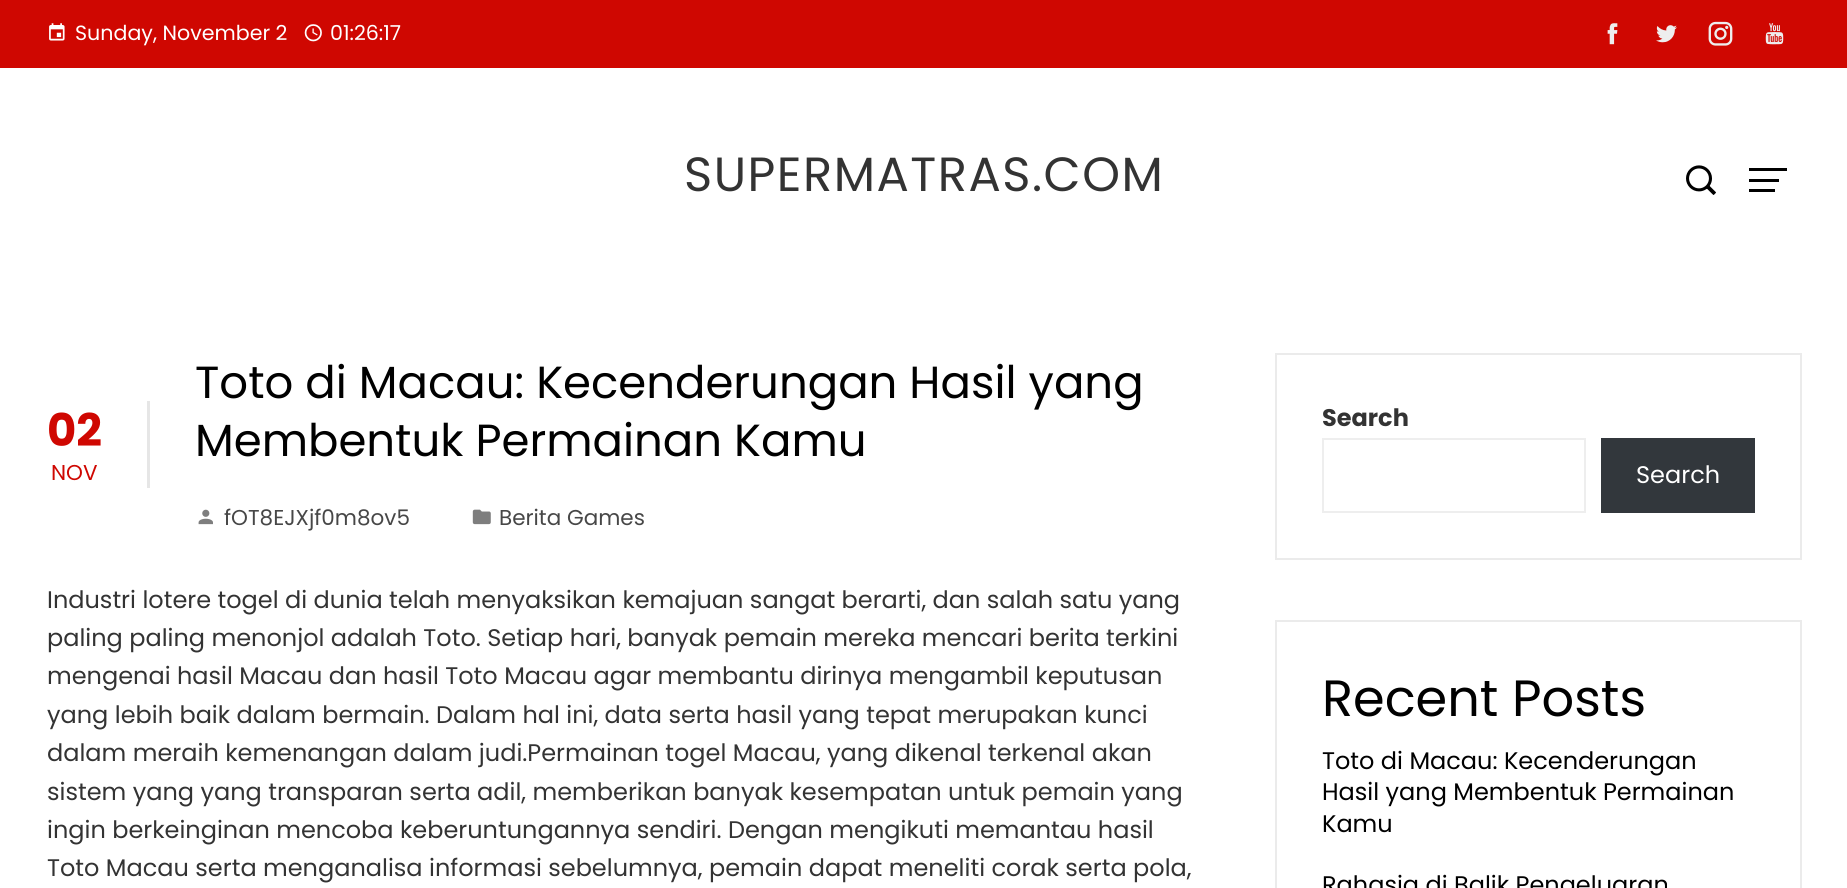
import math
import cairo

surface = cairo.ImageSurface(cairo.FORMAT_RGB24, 1847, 888)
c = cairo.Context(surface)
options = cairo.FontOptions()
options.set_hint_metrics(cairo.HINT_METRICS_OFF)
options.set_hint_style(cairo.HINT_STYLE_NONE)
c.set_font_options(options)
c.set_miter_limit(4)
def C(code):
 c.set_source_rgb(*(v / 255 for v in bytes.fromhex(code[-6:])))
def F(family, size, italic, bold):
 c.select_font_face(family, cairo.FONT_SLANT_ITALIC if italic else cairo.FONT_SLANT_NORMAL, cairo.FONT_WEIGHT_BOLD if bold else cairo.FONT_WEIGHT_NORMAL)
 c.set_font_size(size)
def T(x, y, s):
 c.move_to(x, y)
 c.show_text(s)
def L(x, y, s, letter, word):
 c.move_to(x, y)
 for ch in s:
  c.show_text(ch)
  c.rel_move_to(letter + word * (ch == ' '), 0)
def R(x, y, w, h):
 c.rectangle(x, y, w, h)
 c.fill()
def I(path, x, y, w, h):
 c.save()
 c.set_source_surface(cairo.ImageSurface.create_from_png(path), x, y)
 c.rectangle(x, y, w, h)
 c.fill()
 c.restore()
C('ffffff')
c.paint()
C('cf0701')
R(0,0,1847,68)
I('1.png',49,23,16,18)
F('Poppins',20.6,0,0)
C('ffffff')
T(75,40,'Sunday, November 2')
I('2.png',304,24,18,18)
T(330,40,'01:26:17')
I('3.png',1607,23,11,22)
I('4.png',1656,25,21,18)
I('5.png',1708,21,25,25)
I('6.png',1765,23,19,22)
F('Poppins',48,0,0)
C('333333')
L(684,191,'SUPERMATRAS.COM',1.5,0)
I('7.png',1686,165,30,30)
C('000000')
R(1749,168,38,3)
R(1749,179,30,3)
R(1749,189,26,3)
C('e6e6e6')
R(147,401,3,87)
F('Poppins',45,0,1)
C('cf0701')
T(47,446,'02')
F('Poppins',21.5,0,0)
T(51,480,'NOV')
F('Poppins',45,0,0)
C('000000')
T(195,398,'Toto di Macau: Kecenderungan Hasil yang')
T(195,456,'Membentuk Permainan Kamu')
I('8.png',198,509,15,16)
F('Poppins',21.5,0,0)
C('474747')
T(224,525,'fOT8EJXjf0m8ov5')
I('9.png',472,509,19,16)
T(499,525,'Berita Games')
F('Poppins',24,0,0)
C('333333')
T(47,608,'Industri lotere togel di dunia telah menyaksikan kemajuan sangat berarti, dan salah satu yang')
T(47,646,'paling paling menonjol adalah Toto. Setiap hari, banyak pemain mereka mencari berita terkini')
T(47,684,'mengenai hasil Macau dan hasil Toto Macau agar membantu dirinya mengambil keputusan')
T(47,723,'yang lebih baik dalam bermain. Dalam hal ini, data serta hasil yang tepat merupakan kunci')
T(47,761,'dalam meraih kemenangan dalam judi.Permainan togel Macau, yang dikenal terkenal akan')
T(47,800,'sistem yang yang transparan serta adil, memberikan banyak kesempatan untuk pemain yang')
T(47,838,'ingin berkeinginan mencoba keberuntungannya sendiri. Dengan mengikuti memantau hasil')
T(47,876,'Toto Macau serta menganalisa informasi sebelumnya, pemain dapat meneliti corak serta pola,')
c.rectangle(1276,354,525,205)
C('ebebeb')
c.stroke()
F('Poppins',24,0,1)
C('333333')
T(1322,426,'Search')
c.rectangle(1323,439,262,73)
C('eeeeee')
c.stroke()
C('32373c')
R(1601,438,154,75)
F('Poppins',24,0,0)
C('ffffff')
T(1636,483,'Search')
c.rectangle(1276,621,525,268)
C('ebebeb')
c.stroke()
F('Poppins',51,0,0)
C('000000')
T(1322,716,'Recent Posts')
F('Poppins',24,0,0)
T(1322,769,'Toto di Macau: Kecenderungan')
T(1322,800,'Hasil yang Membentuk Permainan')
T(1322,832,'Kamu')
T(1322,893,'Rahasia di Balik Pengeluaran')
surface.write_to_png('o.png')
